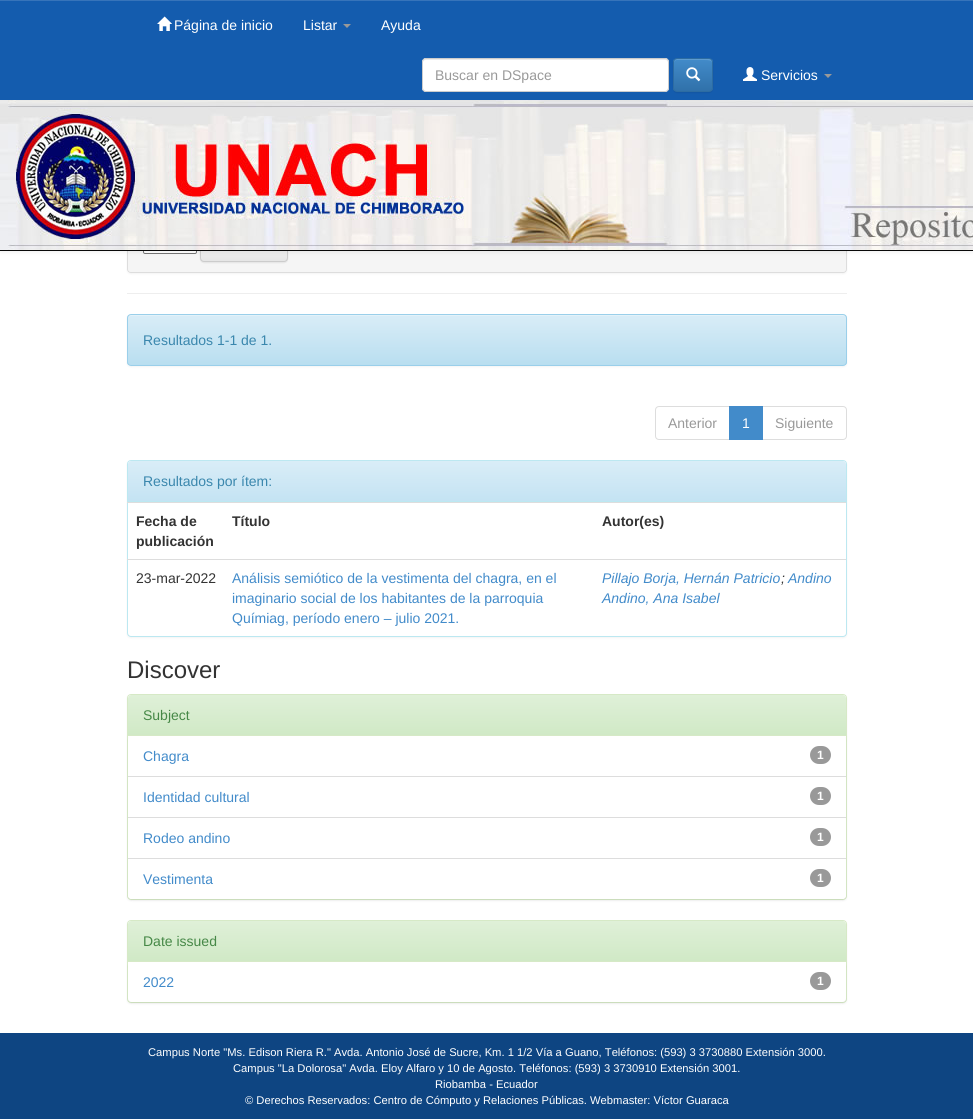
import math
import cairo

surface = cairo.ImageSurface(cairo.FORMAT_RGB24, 973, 1119)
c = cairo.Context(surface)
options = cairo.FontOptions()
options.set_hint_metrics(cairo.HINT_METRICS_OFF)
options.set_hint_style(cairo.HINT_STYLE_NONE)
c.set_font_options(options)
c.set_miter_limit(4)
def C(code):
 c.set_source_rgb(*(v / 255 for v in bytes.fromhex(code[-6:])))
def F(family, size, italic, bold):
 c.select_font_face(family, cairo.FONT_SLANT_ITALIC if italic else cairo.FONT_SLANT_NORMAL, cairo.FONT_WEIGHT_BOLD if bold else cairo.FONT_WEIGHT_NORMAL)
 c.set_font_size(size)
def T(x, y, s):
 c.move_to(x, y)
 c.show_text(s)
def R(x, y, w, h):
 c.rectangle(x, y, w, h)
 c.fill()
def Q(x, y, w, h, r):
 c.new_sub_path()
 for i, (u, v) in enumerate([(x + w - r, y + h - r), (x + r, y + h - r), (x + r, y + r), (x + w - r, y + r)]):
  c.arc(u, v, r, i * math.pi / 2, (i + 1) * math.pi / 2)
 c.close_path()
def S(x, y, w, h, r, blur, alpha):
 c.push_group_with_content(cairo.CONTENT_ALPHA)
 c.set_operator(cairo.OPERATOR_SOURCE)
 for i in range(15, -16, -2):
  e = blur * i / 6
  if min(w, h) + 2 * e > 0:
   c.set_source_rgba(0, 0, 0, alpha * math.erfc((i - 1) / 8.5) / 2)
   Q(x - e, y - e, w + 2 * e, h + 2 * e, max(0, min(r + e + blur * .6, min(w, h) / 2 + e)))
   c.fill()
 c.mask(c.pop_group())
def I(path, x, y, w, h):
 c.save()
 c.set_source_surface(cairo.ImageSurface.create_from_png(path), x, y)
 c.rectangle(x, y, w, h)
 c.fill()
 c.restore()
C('ffffff')
c.paint()
C('000000')
S(127,-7,720,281,4,1,.05)
Q(127.5,-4.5,719,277,3.5)
C('dddddd')
c.set_line_width(1)
c.stroke()
C('f5f5f5')
c.new_path()
c.move_to(128,192)
c.line_to(846,192)
c.line_to(846,269)
c.curve_to(846,270.5,844.5,272,843,272)
c.line_to(131,272)
c.curve_to(129.5,272,128,270.5,128,269)
c.close_path()
c.fill()
C('ffffff')
Q(143.5,234.5,53,19,1.5)
c.fill_preserve()
C('767676')
c.stroke()
C('000000')
S(200,229,88,34,4,.5,.07)
c.save()
Q(200,228,88,34,4)
c.clip()
gradient = cairo.LinearGradient(244,229,244,261)
gradient.add_color_stop_rgba(0,1,1,1,1)
gradient.add_color_stop_rgba(1,0.902,0.902,0.902,1)
c.set_source(gradient)
R(200,251,88,10)
c.restore()
Q(200.5,228.5,87,33,3.5)
C('cccccc')
c.stroke()
C('000000')
S(0,1,973,251,0,2.5,.07)
C('145cae')
R(0,1,973,99)
C('3774ba')
R(0,0,973,1)
C('080808')
R(0,250,973,1)
I('1.png',157,16,15,15)
F('Liberation Sans',14,0,0)
C('ffffff')
T(174,30,'Página de inicio')
T(303,30,'Listar')
C('999999')
c.new_path()
c.move_to(343,24)
c.line_to(351,24)
c.line_to(347,28)
c.close_path()
c.fill()
C('ffffff')
T(381,30,'Ayuda')
Q(422,58,247,34,4)
c.fill()
C('ececec')
c.new_path()
c.move_to(426,60)
c.line_to(666,60)
c.line_to(668,61)
c.line_to(668,63)
c.curve_to(668,61,667,59,665,59)
c.line_to(426,59)
c.curve_to(424,59,423,61,423,63)
c.curve_to(423,61,424,60,426,60)
c.close_path()
c.fill()
Q(422.5,58.5,246,33,3.5)
C('cccccc')
c.stroke()
C('999999')
T(435,80,'Buscar en DSpace')
C('000000')
S(673,59,40,34,4,.5,.07)
c.save()
Q(673,58,40,34,4)
c.clip()
gradient = cairo.LinearGradient(693,59,693,91)
gradient.add_color_stop_rgba(0,0.259,0.545,0.792,1)
gradient.add_color_stop_rgba(1,0.188,0.443,0.663,1)
c.set_source(gradient)
R(673,59,40,32)
c.restore()
C('5e9cd1')
c.new_path()
c.move_to(677,60)
c.line_to(704,60)
c.curve_to(709.5,60,711.5,60.5,712,62.5)
c.curve_to(712,57.5,707.5,59,703.5,59)
c.line_to(682.5,59)
c.curve_to(679,59,674,58,674,62.5)
c.curve_to(674.5,61,675.5,60,677,60)
c.close_path()
c.fill()
Q(673.5,58.5,39,33,3.5)
C('2d6ca2')
c.stroke()
I('2.png',686,67,15,15)
I('3.png',743,67,14,14)
C('ffffff')
T(761,80,'Servicios')
C('999999')
c.new_path()
c.move_to(824,74)
c.line_to(832,74)
c.line_to(828,78)
c.close_path()
c.fill()
I('4.png',0,100,973,150)
C('eeeeee')
R(127,293,720,1)
C('000000')
S(127,315,720,52,4,1,.05)
c.save()
Q(127,314,720,52,4)
c.clip()
gradient = cairo.LinearGradient(487,315,487,365)
gradient.add_color_stop_rgba(0,0.851,0.929,0.969,1)
gradient.add_color_stop_rgba(1,0.725,0.871,0.941,1)
c.set_source(gradient)
R(127,315,720,50)
c.restore()
C('e3f2f9')
c.new_path()
c.move_to(131,316)
c.line_to(843,316)
c.curve_to(845,316,846,317,846,319)
c.curve_to(846,317,845,315,843,315)
c.line_to(131,315)
c.curve_to(129,315,128,317,128,319)
c.curve_to(128,317,129,316,131,316)
c.close_path()
c.fill()
Q(127.5,314.5,719,51,3.5)
C('9acfea')
c.stroke()
C('3a87ad')
T(143,345,'Resultados 1-1 de 1.')
c.new_path()
c.move_to(659,406.5)
c.line_to(729.5,406.5)
c.line_to(729.5,439.5)
c.line_to(659,439.5)
c.curve_to(657,439.5,655.5,438,655.5,436)
c.line_to(655.5,410)
c.curve_to(655.5,408,657,406.5,659,406.5)
c.close_path()
C('dddddd')
c.stroke()
C('999999')
T(668,428,'Anterior')
c.new_path()
c.move_to(762.5,406.5)
c.line_to(843,406.5)
c.curve_to(845,406.5,846.5,408,846.5,410)
c.line_to(846.5,436)
c.curve_to(846.5,438,845,439.5,843,439.5)
c.line_to(762.5,439.5)
c.close_path()
C('dddddd')
c.stroke()
C('428bca')
R(729,406,34,34)
C('ffffff')
T(742,428,'1')
C('999999')
T(775,428,'Siguiente')
C('000000')
S(127,461,720,177,4,1,.05)
C('ffffff')
Q(127.5,460.5,719,176,3.5)
c.fill_preserve()
C('bce8f1')
c.stroke()
gradient = cairo.LinearGradient(487,461,487,501)
gradient.add_color_stop_rgba(0,0.851,0.929,0.969,1)
gradient.add_color_stop_rgba(1,0.769,0.89,0.953,1)
c.set_source(gradient)
c.new_path()
c.move_to(131,461)
c.line_to(843,461)
c.curve_to(844.5,461,846,462.5,846,464)
c.line_to(846,501)
c.line_to(128,501)
c.line_to(128,464)
c.curve_to(128,462.5,129.5,461,131,461)
c.close_path()
c.fill()
C('bce8f1')
R(128,501,718,1)
C('3a87ad')
T(143,486,'Resultados por ítem:')
F('Liberation Sans',14,0,1)
C('333333')
T(136,526,'Fecha de')
T(136,546,'publicación')
T(232,526,'Título')
C('dddddd')
R(127,502,719,1)
C('333333')
T(602,526,'Autor(es)')
F('Liberation Sans',14,0,0)
T(136,583,'23-mar-2022')
C('428bca')
T(232,583,'Análisis semiótico de la vestimenta del chagra, en el')
T(232,603,'imaginario social de los habitantes de la parroquia')
T(232,623,'Químiag, período enero – julio 2021.')
C('dddddd')
R(127,559,719,1)
F('Liberation Sans',14,1,0)
C('428bca')
T(602,583,'Pillajo Borja, Hernán Patricio')
C('333333')
T(781,583,';')
C('428bca')
T(788,583,'Andino')
T(602,603,'Andino, Ana Isabel')
F('Liberation Sans',24,0,0)
C('333333')
T(127,678,'Discover')
C('000000')
S(127,695,720,206,4,1,.05)
C('ffffff')
Q(127.5,694.5,719,205,3.5)
c.fill_preserve()
C('d6e9c6')
c.stroke()
gradient = cairo.LinearGradient(487,695,487,735)
gradient.add_color_stop_rgba(0,0.875,0.941,0.847,1)
gradient.add_color_stop_rgba(1,0.816,0.914,0.776,1)
c.set_source(gradient)
c.new_path()
c.move_to(131,695)
c.line_to(843,695)
c.curve_to(844.5,695,846,696.5,846,698)
c.line_to(846,735)
c.line_to(128,735)
c.line_to(128,698)
c.curve_to(128,696.5,129.5,695,131,695)
c.close_path()
c.fill()
C('d6e9c6')
R(128,735,718,1)
F('Liberation Sans',14,0,0)
C('468847')
T(143,720,'Subject')
c.save()
c.set_fill_rule(cairo.FILL_RULE_EVEN_ODD)
c.new_path()
c.move_to(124,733)
c.line_to(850,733)
c.line_to(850,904)
c.line_to(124,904)
c.close_path()
c.move_to(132,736)
c.line_to(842,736)
c.curve_to(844,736,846,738,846,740)
c.line_to(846,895)
c.curve_to(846,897,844,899,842,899)
c.line_to(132,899)
c.curve_to(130,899,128,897,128,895)
c.line_to(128,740)
c.curve_to(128,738,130,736,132,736)
c.close_path()
c.clip()
C('000000')
S(128,737,718,163,4,1,.07)
c.restore()
C('dddddd')
R(128,776,718,1)
C('428bca')
T(143,761,'Chagra')
C('999999')
Q(810,746,21,18,9)
c.fill()
F('Liberation Sans',12,0,1)
C('ffffff')
T(817,759,'1')
C('dddddd')
R(128,817,718,1)
F('Liberation Sans',14,0,0)
C('428bca')
T(143,802,'Identidad cultural')
C('999999')
Q(810,787,21,18,9)
c.fill()
F('Liberation Sans',12,0,1)
C('ffffff')
T(817,800,'1')
F('Liberation Sans',14,0,0)
C('428bca')
T(143,843,'Rodeo andino')
C('999999')
Q(810,828,21,18,9)
c.fill()
F('Liberation Sans',12,0,1)
C('ffffff')
T(817,841,'1')
c.new_path()
c.move_to(128,858)
c.line_to(846,858)
c.line_to(846,895)
c.curve_to(846,897,844,899,842,899)
c.line_to(132,899)
c.curve_to(130,899,128,897,128,895)
c.close_path()
c.fill()
C('dddddd')
R(128,858,718,1)
F('Liberation Sans',14,0,0)
C('428bca')
T(143,884,'Vestimenta')
C('999999')
Q(810,869,21,18,9)
c.fill()
F('Liberation Sans',12,0,1)
C('ffffff')
T(817,882,'1')
C('000000')
S(127,921,720,83,4,1,.05)
C('ffffff')
Q(127.5,920.5,719,82,3.5)
c.fill_preserve()
C('d6e9c6')
c.stroke()
gradient = cairo.LinearGradient(487,921,487,961)
gradient.add_color_stop_rgba(0,0.875,0.941,0.847,1)
gradient.add_color_stop_rgba(1,0.816,0.914,0.776,1)
c.set_source(gradient)
c.new_path()
c.move_to(131,921)
c.line_to(843,921)
c.curve_to(844.5,921,846,922.5,846,924)
c.line_to(846,961)
c.line_to(128,961)
c.line_to(128,924)
c.curve_to(128,922.5,129.5,921,131,921)
c.close_path()
c.fill()
C('d6e9c6')
R(128,961,718,1)
F('Liberation Sans',14,0,0)
C('468847')
T(143,946,'Date issued')
C('000000')
S(128,963,718,40,4,1,.07)
C('ffffff')
c.new_path()
c.move_to(128,962)
c.line_to(846,962)
c.line_to(846,998)
c.curve_to(846,1000,844,1002,842,1002)
c.line_to(132,1002)
c.curve_to(130,1002,128,1000,128,998)
c.close_path()
c.fill()
C('428bca')
T(143,987,'2022')
C('999999')
Q(810,972,21,18,9)
c.fill()
F('Liberation Sans',12,0,1)
C('ffffff')
T(817,985,'1')
C('0e4582')
R(0,1033,973,86)
F('Liberation Sans',11.2,0,0)
C('ffffff')
T(148,1056,'Campus Norte "Ms. Edison Riera R." Avda. Antonio José de Sucre, Km. 1 1/2 Vía a Guano, Teléfonos: (593) 3 3730880 Extensión 3000.')
T(233,1072,'Campus "La Dolorosa" Avda. Eloy Alfaro y 10 de Agosto. Teléfonos: (593) 3 3730910 Extensión 3001.')
T(435,1088,'Riobamba - Ecuador')
T(245,1104,'© Derechos Reservados: Centro de Cómputo y Relaciones Públicas. Webmaster: Víctor Guaraca')
surface.write_to_png('o.png')
